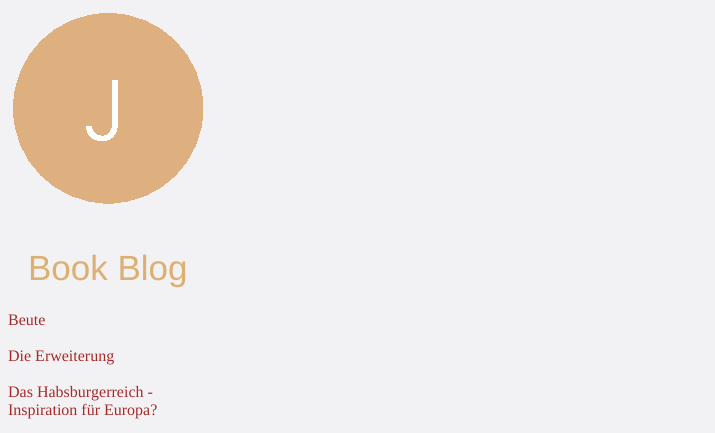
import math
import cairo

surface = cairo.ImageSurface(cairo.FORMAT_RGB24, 715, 433)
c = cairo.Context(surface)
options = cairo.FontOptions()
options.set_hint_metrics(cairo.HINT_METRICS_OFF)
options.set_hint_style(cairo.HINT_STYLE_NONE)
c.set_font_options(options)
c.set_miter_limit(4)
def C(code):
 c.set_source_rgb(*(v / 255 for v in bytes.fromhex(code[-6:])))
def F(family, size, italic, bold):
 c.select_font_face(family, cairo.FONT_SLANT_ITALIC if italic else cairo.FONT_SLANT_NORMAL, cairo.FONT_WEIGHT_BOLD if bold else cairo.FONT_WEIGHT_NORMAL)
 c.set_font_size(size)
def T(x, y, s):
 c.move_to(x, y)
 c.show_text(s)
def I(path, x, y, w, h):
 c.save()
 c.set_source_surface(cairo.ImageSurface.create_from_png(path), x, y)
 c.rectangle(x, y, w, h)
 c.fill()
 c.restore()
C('f2f2f4')
c.paint()
I('1.png',13,13,190,191)
F('Liberation Sans',35,0,0)
C('dcaf72')
T(28,280,'Book Blog')
F('Liberation Serif',16,0,0)
C('a52a2a')
T(8,325,'Beute')
T(8,361,'Die Erweiterung')
T(8,397,'Das Habsburgerreich -')
T(8,415,'Inspiration für Europa?')
surface.write_to_png('o.png')
